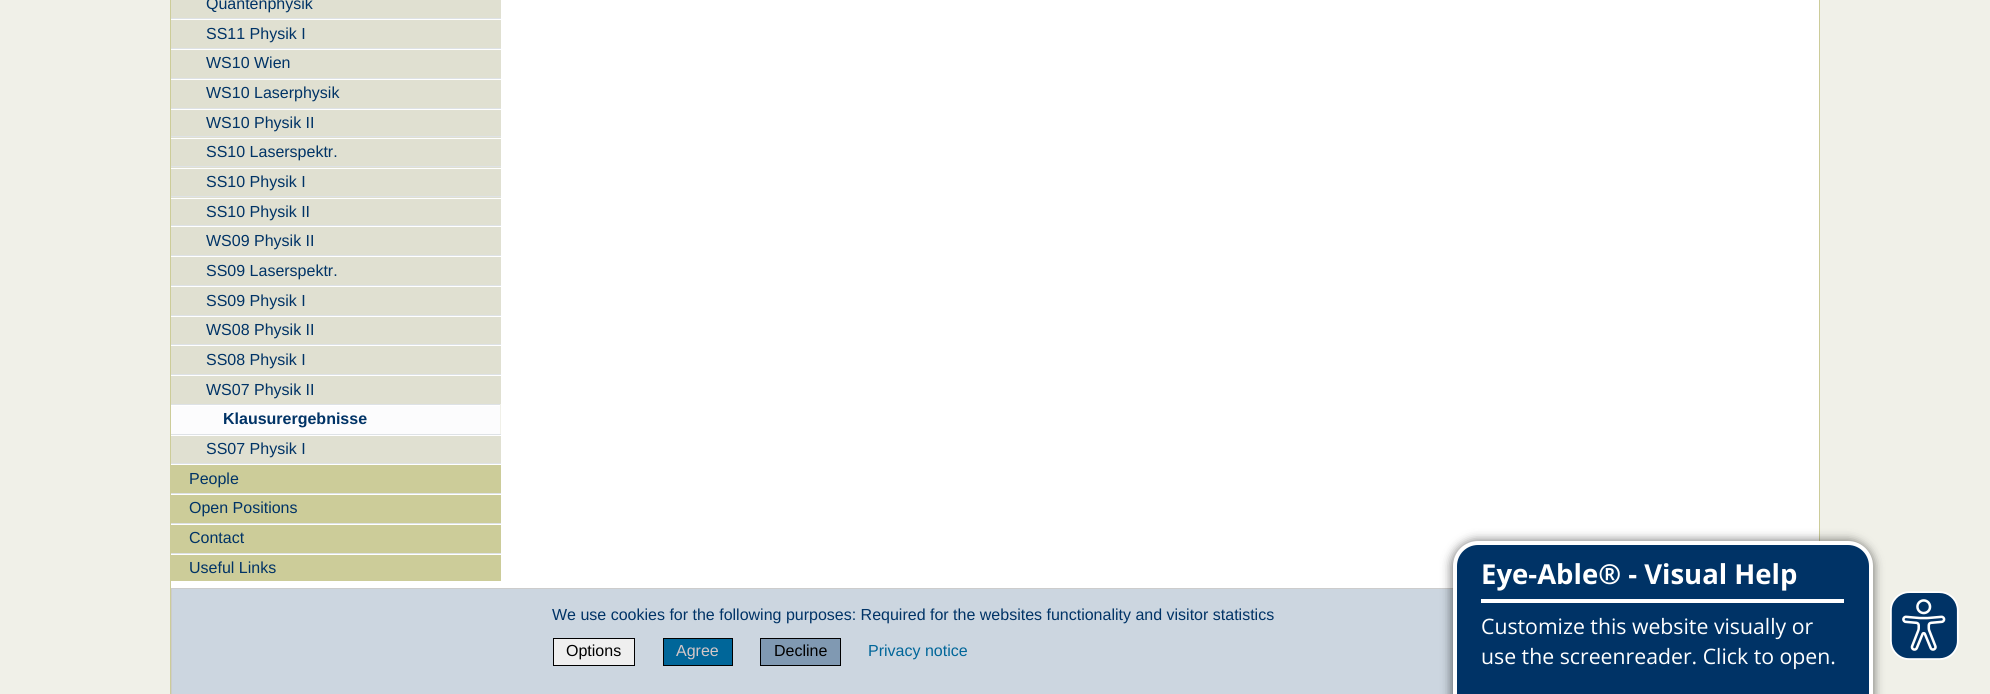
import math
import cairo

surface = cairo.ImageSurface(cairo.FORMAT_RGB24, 1990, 694)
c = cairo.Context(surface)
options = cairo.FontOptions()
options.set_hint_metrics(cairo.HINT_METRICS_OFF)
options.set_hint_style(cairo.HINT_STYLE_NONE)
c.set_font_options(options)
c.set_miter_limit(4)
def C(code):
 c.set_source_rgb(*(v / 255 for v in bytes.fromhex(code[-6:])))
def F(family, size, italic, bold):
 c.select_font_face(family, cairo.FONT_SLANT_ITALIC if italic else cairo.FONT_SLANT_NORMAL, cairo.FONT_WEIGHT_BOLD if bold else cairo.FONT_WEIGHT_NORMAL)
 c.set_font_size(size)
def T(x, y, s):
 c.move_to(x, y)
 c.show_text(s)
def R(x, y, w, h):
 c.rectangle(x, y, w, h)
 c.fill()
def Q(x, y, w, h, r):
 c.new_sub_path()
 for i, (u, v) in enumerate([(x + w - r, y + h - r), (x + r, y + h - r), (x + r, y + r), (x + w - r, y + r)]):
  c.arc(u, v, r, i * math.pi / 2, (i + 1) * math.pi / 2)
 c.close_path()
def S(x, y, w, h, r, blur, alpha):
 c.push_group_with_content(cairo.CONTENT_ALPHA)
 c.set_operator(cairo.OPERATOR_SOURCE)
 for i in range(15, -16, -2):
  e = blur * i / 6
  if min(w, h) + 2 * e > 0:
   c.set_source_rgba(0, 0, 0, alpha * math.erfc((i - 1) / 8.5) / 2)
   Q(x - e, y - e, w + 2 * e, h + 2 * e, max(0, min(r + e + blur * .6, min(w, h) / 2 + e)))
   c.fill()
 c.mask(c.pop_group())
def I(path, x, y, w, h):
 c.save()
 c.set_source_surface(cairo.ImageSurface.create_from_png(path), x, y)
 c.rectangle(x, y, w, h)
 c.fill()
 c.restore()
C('f0f0e8')
c.paint()
C('ffffff')
R(171,0,1648,588)
C('cccc99')
R(1819,0,1,541)
R(170,0,1,694)
C('e0e0d1')
R(171,0,330,18)
F('Liberation Sans',16,0,0)
C('003366')
T(206,9,'Quantenphysik')
C('e0e0d1')
R(171,20,330,28)
C('dee2e6')
R(171,18,330,1)
C('003366')
T(206,39,'SS11 Physik I')
C('e0e0d1')
R(171,50,330,28)
C('dee2e6')
R(171,48,330,1)
C('003366')
T(206,68,'WS10 Wien')
C('e0e0d1')
R(171,80,330,28)
C('dee2e6')
R(171,78,330,1)
C('003366')
T(206,98,'WS10 Laserphysik')
C('e0e0d1')
R(171,110,330,26)
C('dee2e6')
R(171,108,330,1)
C('003366')
T(206,128,'WS10 Physik II')
C('e0e0d1')
R(171,137,330,29)
C('dee2e6')
R(171,136,330,1)
C('ffffff')
R(171,138,330,1)
C('003366')
T(206,157,'SS10 Laserspektr.')
C('e0e0d1')
R(171,167,330,29)
C('dee2e6')
R(171,166,330,1)
C('ffffff')
R(171,168,330,1)
C('003366')
T(206,187,'SS10 Physik I')
C('e0e0d1')
R(171,197,330,28)
C('dee2e6')
R(171,196,330,1)
C('ffffff')
R(171,198,330,1)
C('003366')
T(206,217,'SS10 Physik II')
C('e0e0d1')
R(171,227,330,28)
C('dee2e6')
R(171,225,330,1)
C('003366')
T(206,246,'WS09 Physik II')
C('e0e0d1')
R(171,257,330,28)
C('dee2e6')
R(171,255,330,1)
C('003366')
T(206,276,'SS09 Laserspektr.')
C('e0e0d1')
R(171,287,330,28)
C('dee2e6')
R(171,285,330,1)
C('003366')
T(206,306,'SS09 Physik I')
C('e0e0d1')
R(171,317,330,27)
C('dee2e6')
R(171,315,330,1)
C('003366')
T(206,335,'WS08 Physik II')
C('e0e0d1')
R(171,346,330,28)
C('dee2e6')
R(171,344,330,1)
C('003366')
T(206,365,'SS08 Physik I')
C('e0e0d1')
R(171,376,330,28)
C('dee2e6')
R(171,374,330,1)
C('003366')
T(206,395,'WS07 Physik II')
C('dee2e6')
R(171,404,330,1)
C('f0f0e8')
R(500,404,1,30)
C('fcfcfd')
R(171,406,329,28)
F('Liberation Sans',16,0,1)
C('003366')
T(223,424,'Klausurergebnisse')
C('e0e0d1')
R(171,436,330,27)
C('dee2e6')
R(171,434,330,1)
F('Liberation Sans',16,0,0)
C('003366')
T(206,454,'SS07 Physik I')
C('cccc99')
R(171,465,330,28)
C('dee2e6')
R(171,463,330,1)
C('003366')
T(189,484,'People')
C('cccc99')
R(171,495,330,28)
C('dee2e6')
R(171,493,330,1)
C('003366')
T(189,513,'Open Positions')
C('cccc99')
R(171,525,330,28)
C('dee2e6')
R(171,523,330,1)
C('003366')
T(189,543,'Contact')
C('cccc99')
R(171,555,330,26)
C('dee2e6')
R(171,553,330,1)
C('003366')
T(189,573,'Useful Links')
C('ccd6e0')
R(172,589,1281,105)
c.rectangle(171.5,588.5,1649,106)
C('cccccc')
c.set_line_width(1)
c.stroke()
C('003366')
T(552,620,'We use cookies for the following purposes: Required for the websites functionality and visitor statistics')
C('efefef')
c.rectangle(553.5,638.5,81,27)
c.fill_preserve()
C('000000')
c.stroke()
T(566,656,'Options')
C('006699')
c.rectangle(663.5,638.5,69,27)
c.fill_preserve()
C('000000')
c.stroke()
C('d5c7c7')
T(676,656,'Agree')
C('8099b2')
c.rectangle(760.5,638.5,80,27)
c.fill_preserve()
C('000000')
c.stroke()
T(774,656,'Decline')
C('006699')
T(868,656,'Privacy notice')
C('000000')
S(1451,540,423,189,26,5,.5)
C('003366')
Q(1455,543,416,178,23)
c.fill_preserve()
C('ffffff')
c.set_line_width(4)
c.stroke()
R(1481,599,363,4)
F('Open Sans',27.5,0,1)
T(1481,584,'Eye-Able® - Visual Help')
F('Open Sans',21.25,0,0)
T(1481,634,'Customize this website visually or')
T(1481,664,'use the screenreader. Click to open.')
I('1.png',1890,591,69,69)
surface.write_to_png('o.png')
